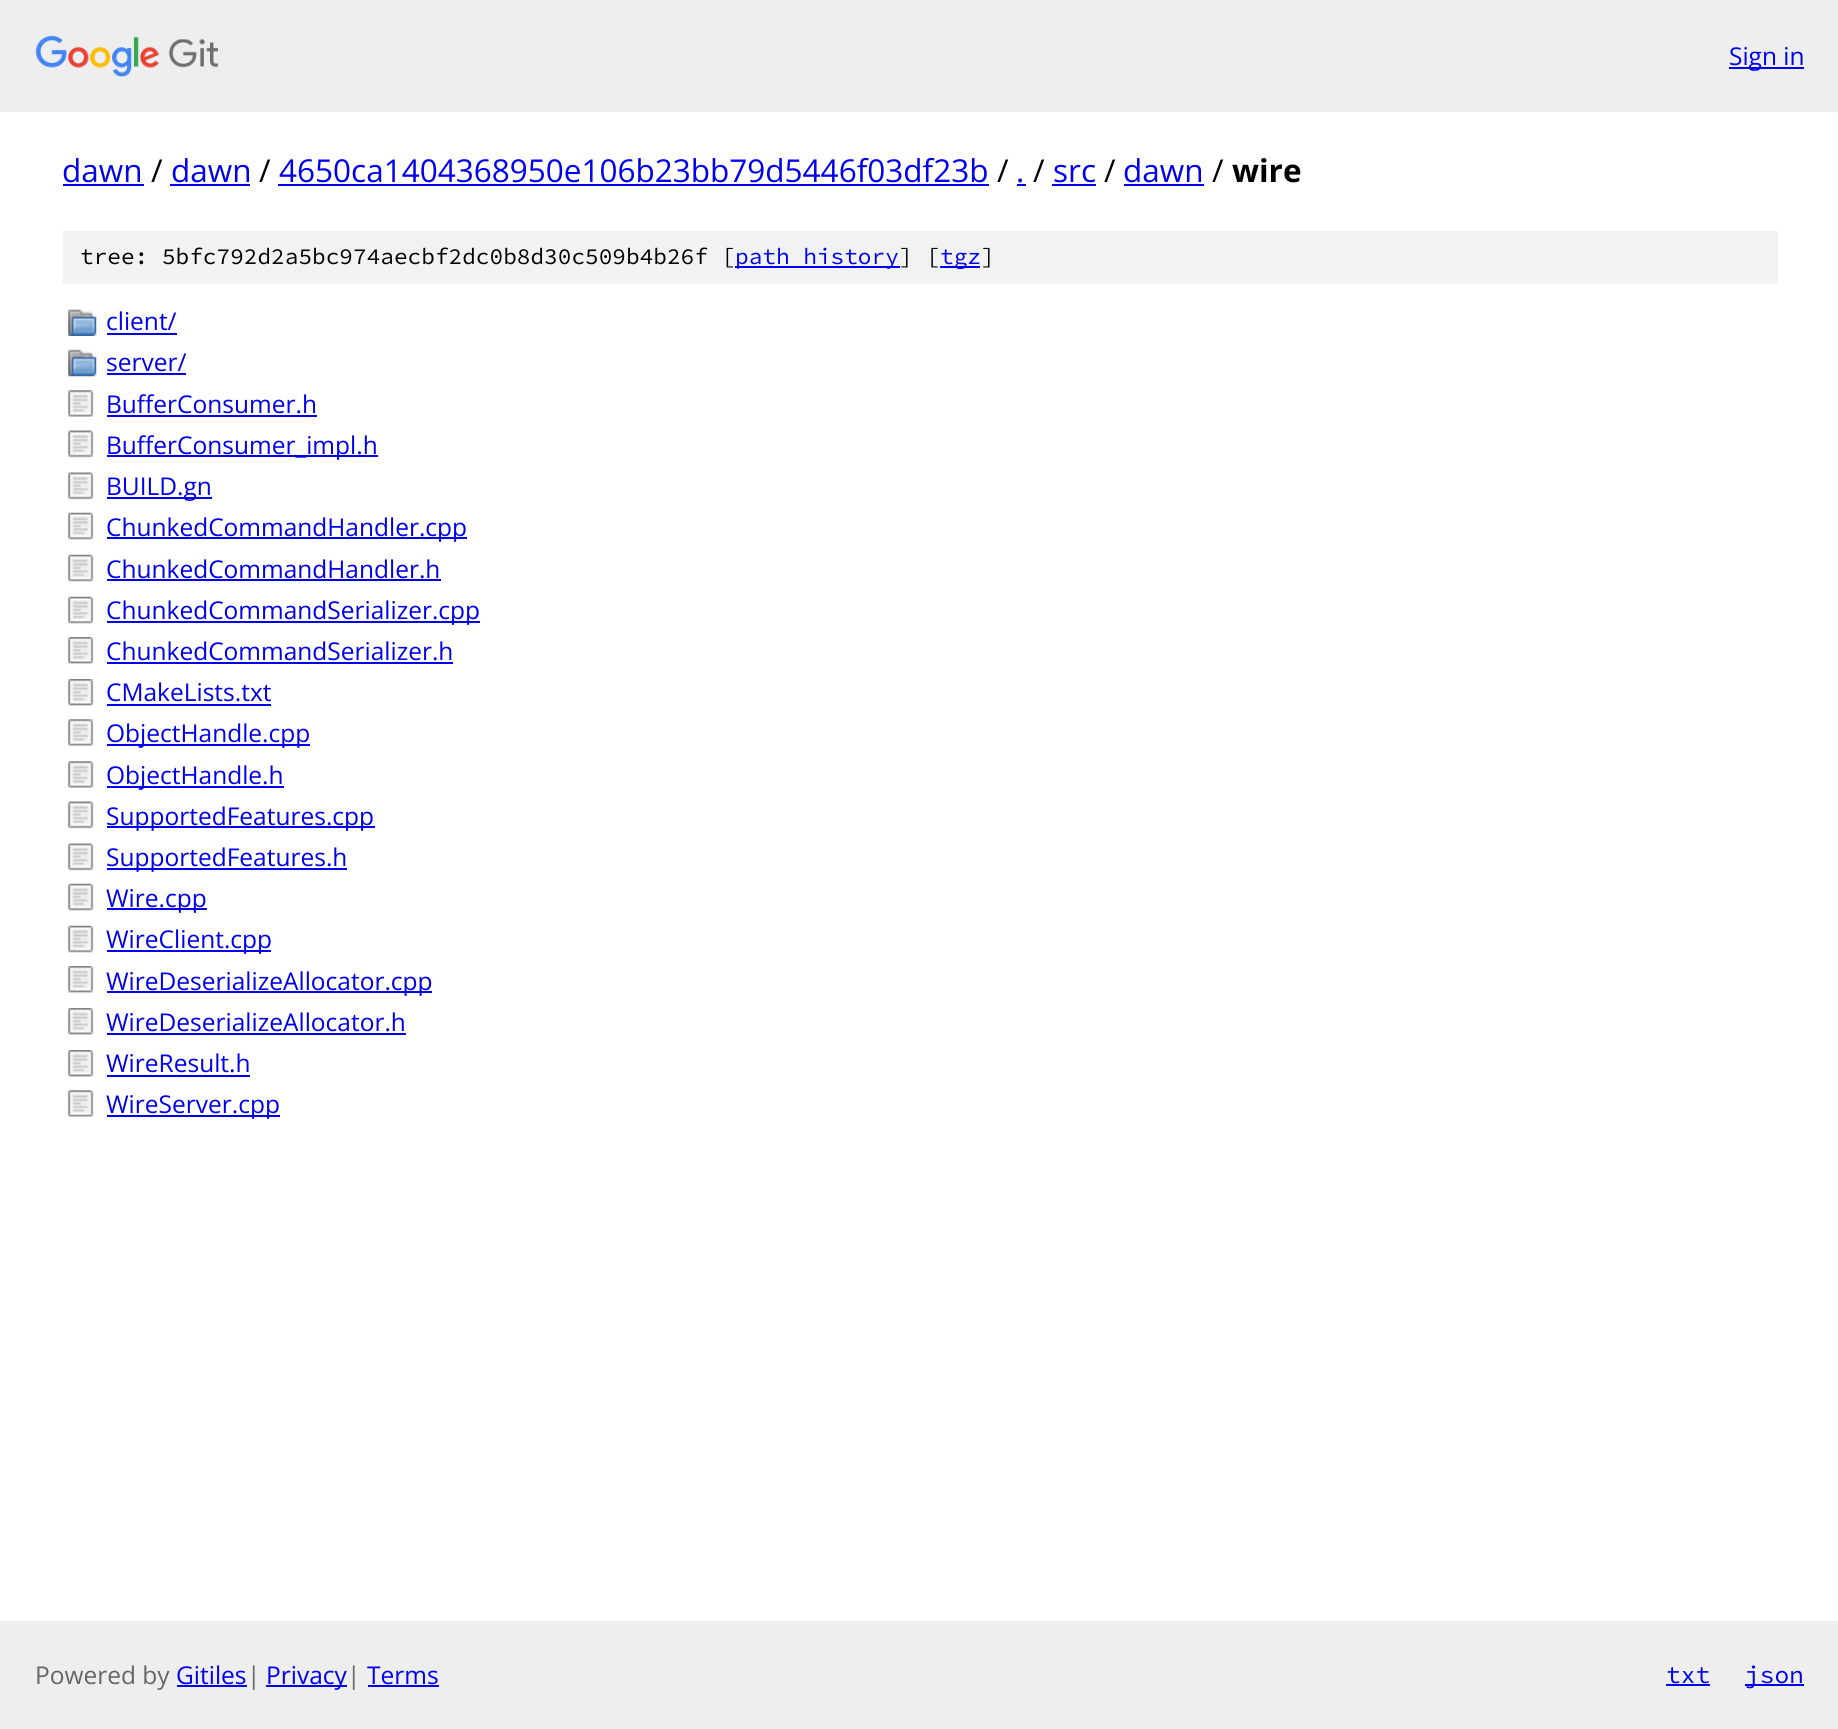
import math
import cairo

surface = cairo.ImageSurface(cairo.FORMAT_RGB24, 1838, 1729)
c = cairo.Context(surface)
options = cairo.FontOptions()
options.set_hint_metrics(cairo.HINT_METRICS_OFF)
options.set_hint_style(cairo.HINT_STYLE_NONE)
c.set_font_options(options)
c.set_miter_limit(4)
def C(code):
 c.set_source_rgb(*(v / 255 for v in bytes.fromhex(code[-6:])))
def F(family, size, italic, bold):
 c.select_font_face(family, cairo.FONT_SLANT_ITALIC if italic else cairo.FONT_SLANT_NORMAL, cairo.FONT_WEIGHT_BOLD if bold else cairo.FONT_WEIGHT_NORMAL)
 c.set_font_size(size)
def T(x, y, s):
 c.move_to(x, y)
 c.show_text(s)
def R(x, y, w, h):
 c.rectangle(x, y, w, h)
 c.fill()
def I(path, x, y, w, h):
 c.save()
 c.set_source_surface(cairo.ImageSurface.create_from_png(path), x, y)
 c.rectangle(x, y, w, h)
 c.fill()
 c.restore()
C('ffffff')
c.paint()
C('eeeeee')
R(0,0,1838,112)
I('1.png',35,35,183,42)
C('0000ee')
R(1729,67,75,2)
F('Open Sans',24.5,0,0)
T(1729,65,'Sign in')
F('Open Sans',31.5,0,0)
T(62,182,'dawn')
R(63,184,81,2)
C('000000')
T(151,182,'/')
C('0000ee')
T(171,182,'dawn')
R(170,184,80,2)
C('000000')
T(259,182,'/')
C('0000ee')
T(279,182,'4650ca1404368950e106b23bb79d5446f03df23b')
R(278,184,711,2)
C('000000')
T(997,182,'/')
C('0000ee')
T(1016,182,'.')
R(1017,184,9,2)
C('000000')
T(1033,182,'/')
C('0000ee')
T(1053,182,'src')
R(1052,184,44,2)
C('000000')
T(1104,182,'/')
C('0000ee')
T(1123,182,'dawn')
R(1124,184,80,2)
C('000000')
T(1212,182,'/')
F('Open Sans',31.5,0,1)
T(1232,182,'wire')
C('f1f2f3')
R(63,231,1715,53)
F('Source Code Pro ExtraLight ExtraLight',22.75,0,0)
C('000000')
T(80,264,'tree: 5bfc792d2a5bc974aecbf2dc0b8d30c509b4b26f [')
C('0000ee')
R(735,266,165,2)
T(735,264,'path history')
C('000000')
T(899,264,'] [')
C('0000ee')
R(940,266,40,2)
T(940,264,'tgz')
C('000000')
T(981,264,']')
I('2.png',68,309,29,27)
F('Open Sans',24.5,0,0)
C('0000ee')
T(106,330,'client/')
R(107,333,70,2)
I('3.png',68,349,29,28)
T(106,371,'server/')
R(107,373,79,2)
I('4.png',68,390,26,27)
T(106,413,'BufferConsumer.h')
R(107,415,210,2)
I('5.png',68,430,26,28)
R(107,455,271,2)
T(106,454,'BufferConsumer_impl.h')
I('5.png',68,472,26,28)
R(107,497,105,2)
T(106,495,'BUILD.gn')
I('6.png',68,512,26,28)
R(107,537,360,2)
T(106,536,'ChunkedCommandHandler.cpp')
I('6.png',68,554,26,28)
T(106,578,'ChunkedCommandHandler.h')
R(107,579,334,2)
I('6.png',68,596,26,28)
R(107,621,373,2)
T(106,619,'ChunkedCommandSerializer.cpp')
I('7.png',68,637,26,27)
T(106,660,'ChunkedCommandSerializer.h')
R(107,662,346,2)
I('7.png',68,679,26,27)
T(106,701,'CMakeLists.txt')
R(107,704,164,2)
I('4.png',68,719,26,27)
R(107,744,203,2)
T(106,742,'ObjectHandle.cpp')
I('4.png',68,761,26,27)
R(107,786,177,2)
T(106,784,'ObjectHandle.h')
I('5.png',68,801,26,28)
R(107,826,268,2)
T(106,825,'SupportedFeatures.cpp')
I('5.png',68,843,26,28)
R(107,868,240,2)
T(106,866,'SupportedFeatures.h')
I('6.png',68,883,26,28)
R(107,908,100,2)
T(106,907,'Wire.cpp')
I('6.png',68,925,26,28)
R(107,950,164,2)
T(106,948,'WireClient.cpp')
I('7.png',68,966,26,27)
R(107,991,325,2)
T(106,990,'WireDeserializeAllocator.cpp')
I('7.png',68,1008,26,27)
T(106,1031,'WireDeserializeAllocator.h')
R(107,1033,299,2)
I('7.png',68,1050,26,27)
T(106,1072,'WireResult.h')
R(107,1075,143,2)
I('4.png',68,1090,26,27)
R(107,1115,173,2)
T(106,1113,'WireServer.cpp')
C('eeeeee')
R(0,1621,1838,108)
C('666666')
T(35,1684,'Powered by')
C('0000ee')
T(176,1684,'Gitiles')
R(177,1685,70,2)
C('666666')
T(247,1684,'|')
C('0000ee')
R(266,1685,81,2)
T(266,1684,'Privacy')
C('666666')
T(347,1684,'|')
C('0000ee')
T(367,1684,'Terms')
R(368,1685,71,2)
F('Source Code Pro ExtraLight ExtraLight',24.5,0,0)
T(1666,1683,'txt')
R(1666,1684,44,2)
R(1745,1684,59,2)
T(1745,1683,'json')
surface.write_to_png('o.png')
